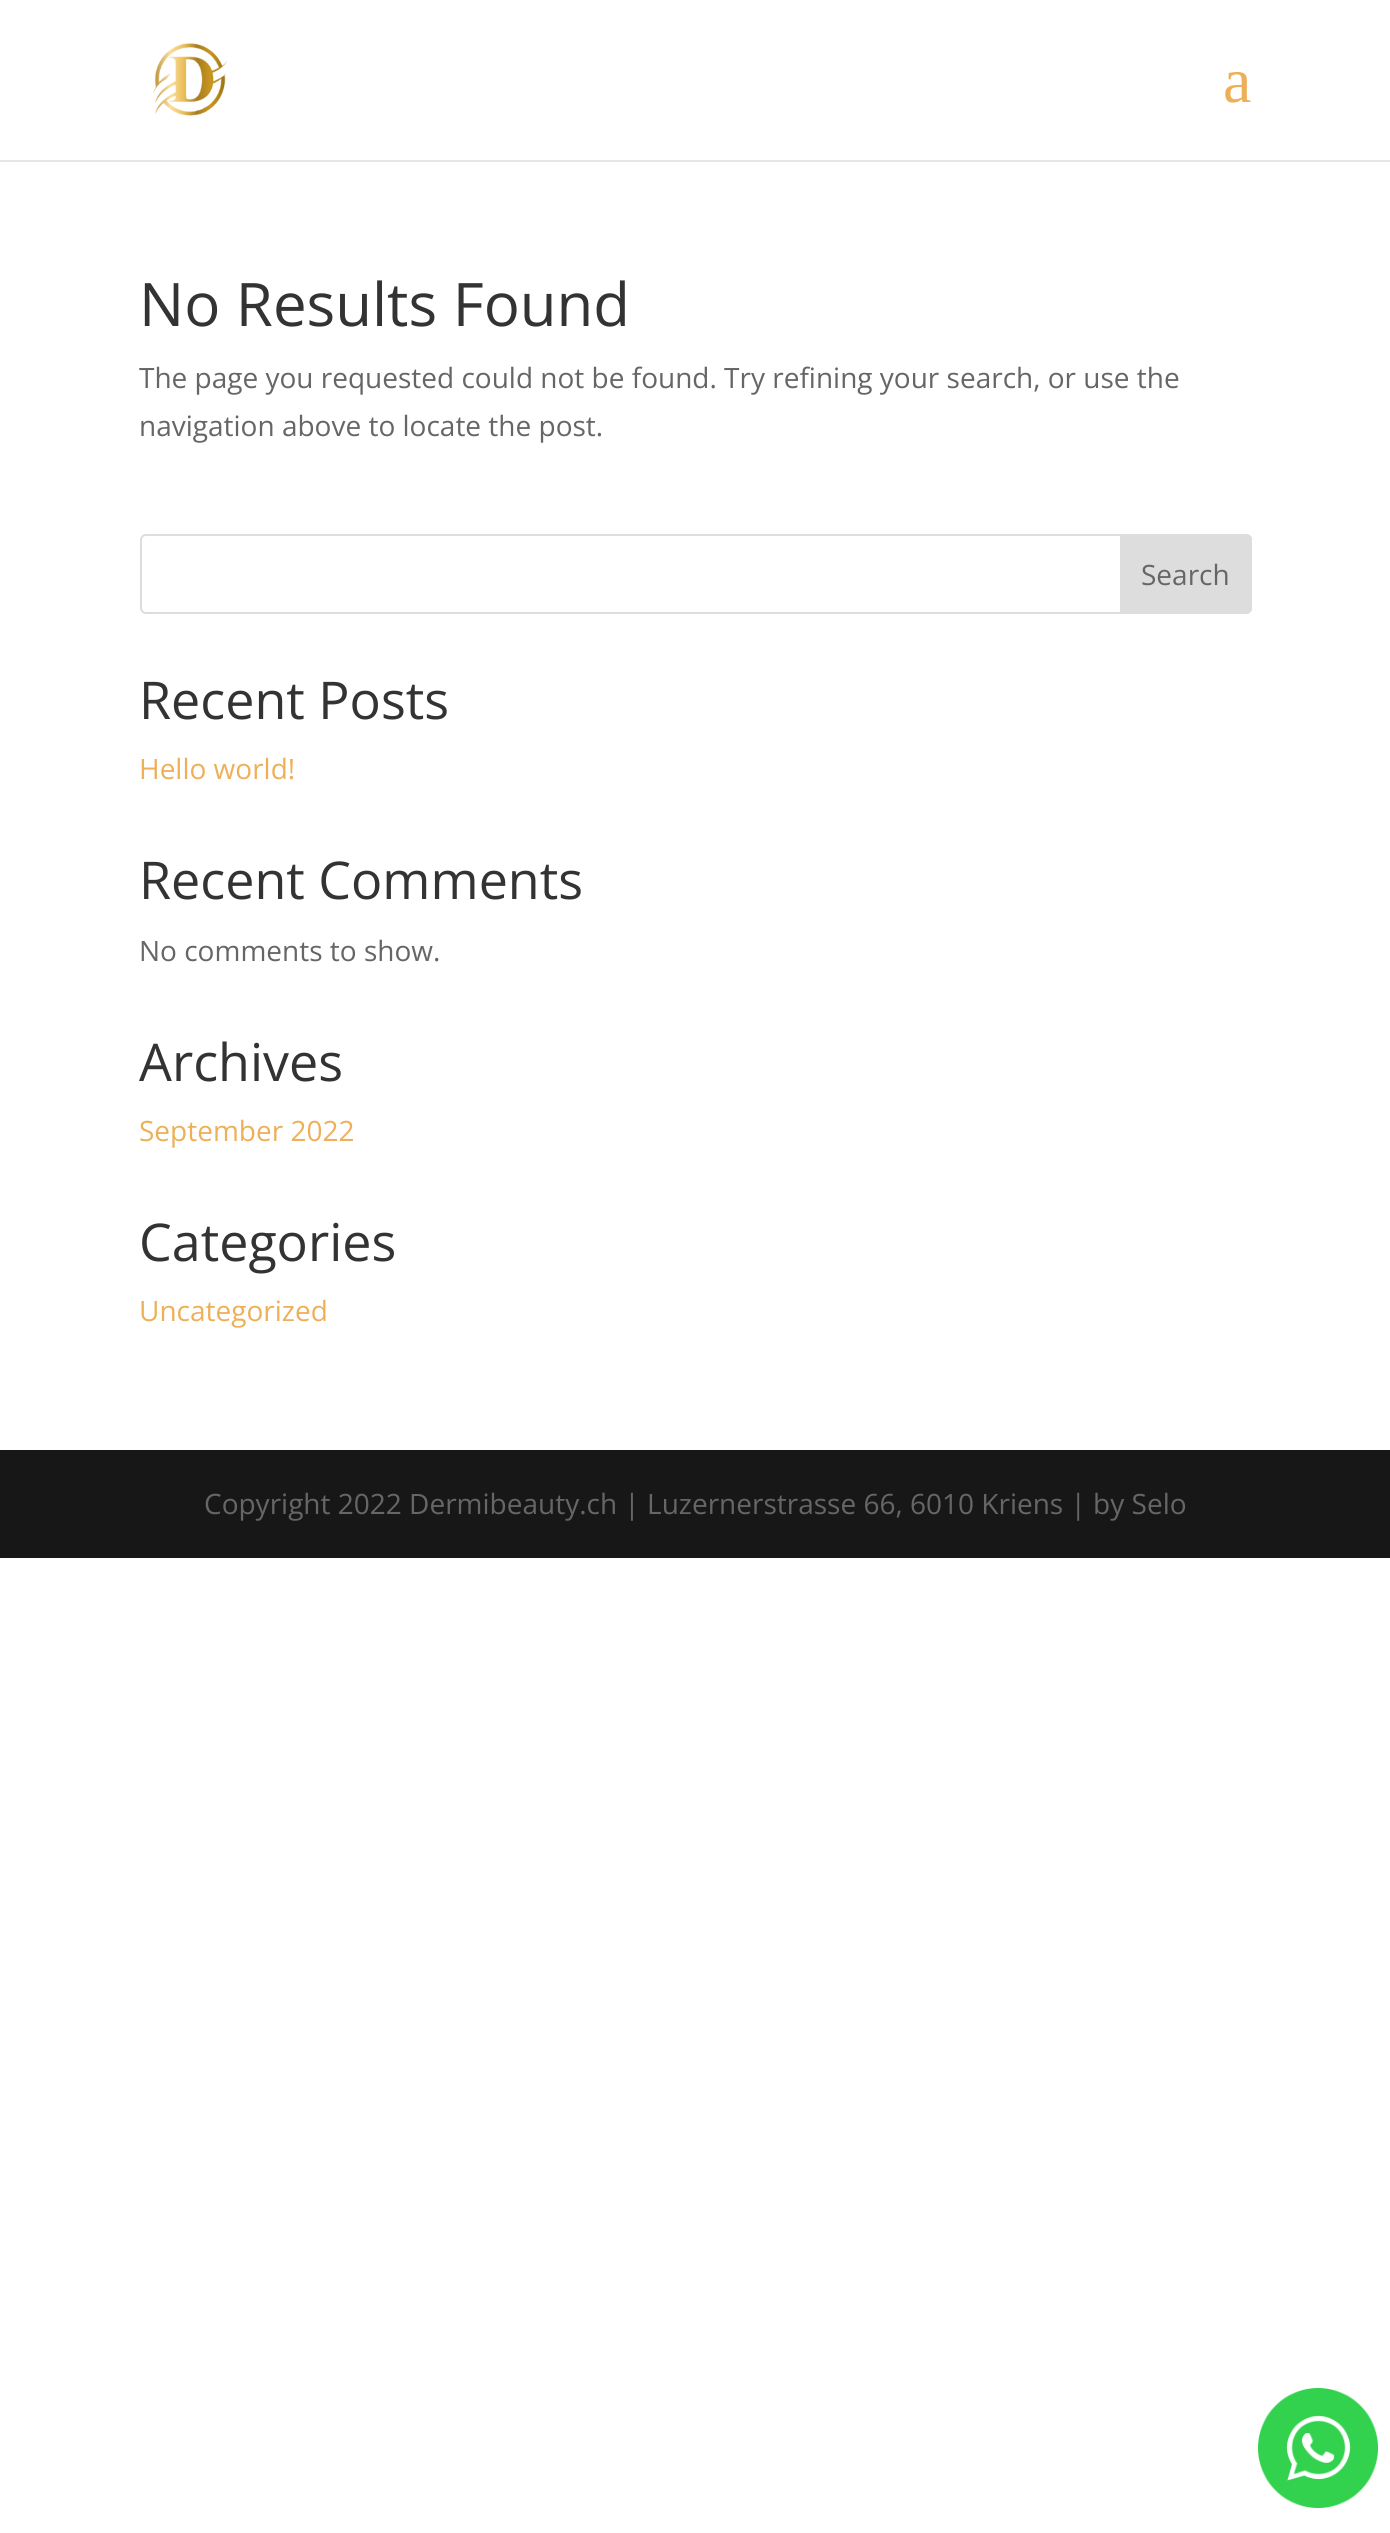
import math
import cairo

surface = cairo.ImageSurface(cairo.FORMAT_RGB24, 1390, 2533)
c = cairo.Context(surface)
options = cairo.FontOptions()
options.set_hint_metrics(cairo.HINT_METRICS_OFF)
options.set_hint_style(cairo.HINT_STYLE_NONE)
c.set_font_options(options)
c.set_miter_limit(4)
def C(code):
 c.set_source_rgb(*(v / 255 for v in bytes.fromhex(code[-6:])))
def F(family, size, italic, bold):
 c.select_font_face(family, cairo.FONT_SLANT_ITALIC if italic else cairo.FONT_SLANT_NORMAL, cairo.FONT_WEIGHT_BOLD if bold else cairo.FONT_WEIGHT_NORMAL)
 c.set_font_size(size)
def T(x, y, s):
 c.move_to(x, y)
 c.show_text(s)
def R(x, y, w, h):
 c.rectangle(x, y, w, h)
 c.fill()
def Q(x, y, w, h, r):
 c.new_sub_path()
 for i, (u, v) in enumerate([(x + w - r, y + h - r), (x + r, y + h - r), (x + r, y + r), (x + w - r, y + r)]):
  c.arc(u, v, r, i * math.pi / 2, (i + 1) * math.pi / 2)
 c.close_path()
def I(path, x, y, w, h):
 c.save()
 c.set_source_surface(cairo.ImageSurface.create_from_png(path), x, y)
 c.rectangle(x, y, w, h)
 c.fill()
 c.restore()
C('ffffff')
c.paint()
C('e6e6e6')
R(0,160,1390,2)
I('1.png',153,43,74,74)
F('Liberation Serif',64,0,0)
C('edb059')
T(1223,102,'a')
F('Open Sans',60,0,0)
C('333333')
T(139,326,'No Results Found')
F('Open Sans',28,0,0)
C('666666')
T(139,388,'The page you requested could not be found. Try refining your search, or use the')
T(139,436,'navigation above to locate the post.')
Q(141,535,1110,78,5)
C('dddddd')
c.stroke()
c.new_path()
c.move_to(1121,535)
c.line_to(1246,535)
c.curve_to(1249,535,1251,537,1251,540)
c.line_to(1251,608)
c.curve_to(1251,611,1249,613,1246,613)
c.line_to(1121,613)
c.close_path()
c.fill_preserve()
c.stroke()
C('666666')
T(1141,585,'Search')
F('Open Sans',52,0,0)
C('333333')
T(139,719,'Recent Posts')
F('Open Sans',28,0,0)
C('edb059')
T(139,779,'Hello world!')
F('Open Sans',52,0,0)
C('333333')
T(139,899,'Recent Comments')
F('Open Sans',28,0,0)
C('666666')
T(139,961,'No comments to show.')
F('Open Sans',52,0,0)
C('333333')
T(139,1081,'Archives')
F('Open Sans',28,0,0)
C('edb059')
T(139,1141,'September 2022')
F('Open Sans',52,0,0)
C('333333')
T(139,1261,'Categories')
F('Open Sans',28,0,0)
C('edb059')
T(139,1321,'Uncategorized')
C('171717')
R(0,1450,1390,108)
C('666666')
T(204,1514,'Copyright 2022 Dermibeauty.ch | Luzernerstrasse 66, 6010 Kriens | by Selo')
I('2.png',1258,2388,120,120)
surface.write_to_png('o.png')
